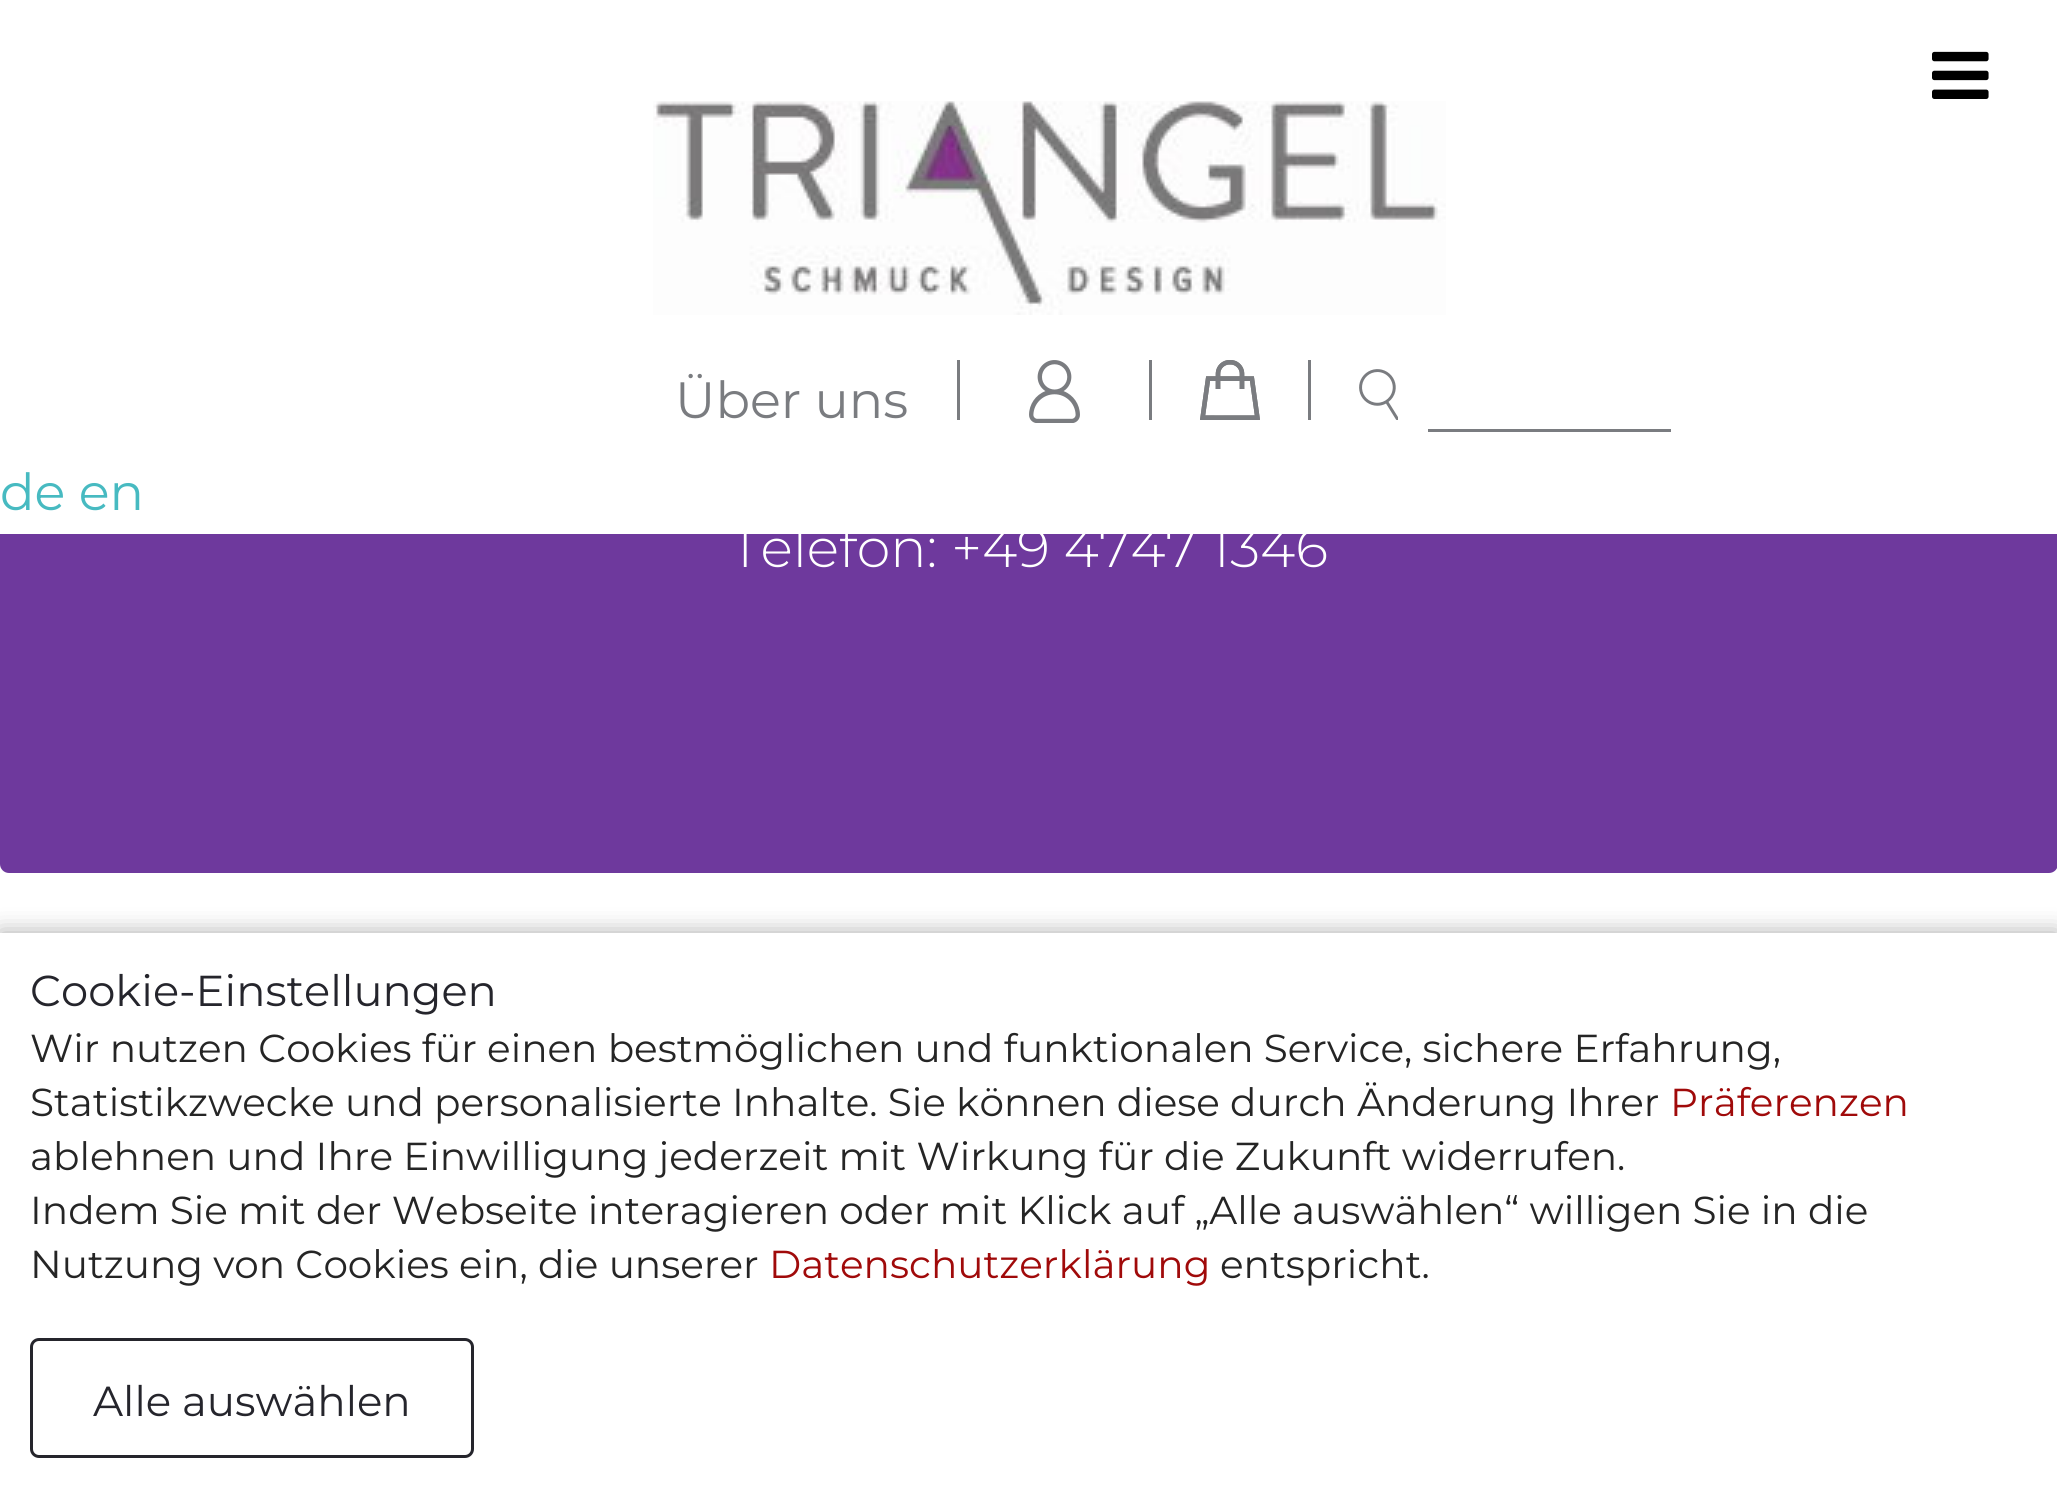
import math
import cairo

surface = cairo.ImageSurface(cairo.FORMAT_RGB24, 2057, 1487)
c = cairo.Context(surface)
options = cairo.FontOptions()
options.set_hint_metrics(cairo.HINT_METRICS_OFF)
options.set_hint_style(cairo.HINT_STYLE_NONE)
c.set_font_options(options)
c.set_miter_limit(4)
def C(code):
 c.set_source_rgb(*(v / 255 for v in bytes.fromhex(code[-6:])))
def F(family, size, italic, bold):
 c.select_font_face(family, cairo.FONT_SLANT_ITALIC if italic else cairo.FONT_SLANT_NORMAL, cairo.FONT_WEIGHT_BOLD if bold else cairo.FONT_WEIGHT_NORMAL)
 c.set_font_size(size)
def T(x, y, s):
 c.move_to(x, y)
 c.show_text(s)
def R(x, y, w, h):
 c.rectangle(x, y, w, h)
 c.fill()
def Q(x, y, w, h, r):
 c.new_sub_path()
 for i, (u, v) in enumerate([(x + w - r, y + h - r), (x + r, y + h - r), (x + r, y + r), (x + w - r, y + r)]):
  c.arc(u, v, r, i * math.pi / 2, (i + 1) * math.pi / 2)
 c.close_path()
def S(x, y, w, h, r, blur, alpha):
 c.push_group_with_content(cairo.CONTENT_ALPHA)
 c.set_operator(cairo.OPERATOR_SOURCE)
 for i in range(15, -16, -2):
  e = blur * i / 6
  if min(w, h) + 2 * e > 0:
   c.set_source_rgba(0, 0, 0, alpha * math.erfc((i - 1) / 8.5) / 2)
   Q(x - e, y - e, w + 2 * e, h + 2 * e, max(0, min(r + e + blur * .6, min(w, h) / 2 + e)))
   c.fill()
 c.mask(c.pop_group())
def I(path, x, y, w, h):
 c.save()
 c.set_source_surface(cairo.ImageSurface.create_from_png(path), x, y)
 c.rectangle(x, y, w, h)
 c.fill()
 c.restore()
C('ffffff')
c.paint()
C('6e399d')
Q(0,-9,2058,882,9)
c.fill()
C('ffffff')
R(0,0,2057,534)
I('1.png',1932,51,57,48)
I('2.png',653,101,793,214)
C('7a7c80')
R(957,360,3,60)
F('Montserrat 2 Thin',51,0,0)
T(675,418,'Über uns')
R(1149,360,3,60)
I('3.png',1029,360,51,63)
R(1308,360,3,60)
I('4.png',1200,360,60,60)
I('5.png',1359,369,39,51)
R(1428,429,243,3)
C('47bac1')
T(0,510,'de en')
F('Montserrat Thin',54,0,0)
C('ffffff')
T(730,567,'Telefon: +49 4747 1346')
C('000000')
S(0,933,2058,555,0,12,.33)
C('ffffff')
R(0,933,2057,554)
F('Montserrat 2 Thin',43.25,0,0)
C('25252c')
T(30,1006,'Cookie-Einstellungen')
F('Montserrat 2 Thin',39,0,0)
C('252525')
T(30,1062,'Wir nutzen Cookies für einen bestmöglichen und funktionalen Service, sichere Erfahrung,')
T(30,1116,'Statistikzwecke und personalisierte Inhalte. Sie können diese durch Änderung Ihrer')
C('a00a0a')
T(1670,1116,'Präferenzen')
C('252525')
T(30,1170,'ablehnen und Ihre Einwilligung jederzeit mit Wirkung für die Zukunft widerrufen.')
T(30,1224,'Indem Sie mit der Webseite interagieren oder mit Klick auf „Alle auswählen“ willigen Sie in die')
T(30,1278,'Nutzung von Cookies ein, die unserer')
C('a00a0a')
T(769,1278,'Datenschutzerklärung')
C('252525')
T(1220,1278,'entspricht.')
Q(31.5,1339.5,441,117,7.5)
C('25252c')
c.set_line_width(3)
c.stroke()
F('Montserrat 2 Thin',42,0,0)
T(93,1416,'Alle auswählen')
surface.write_to_png('o.png')
